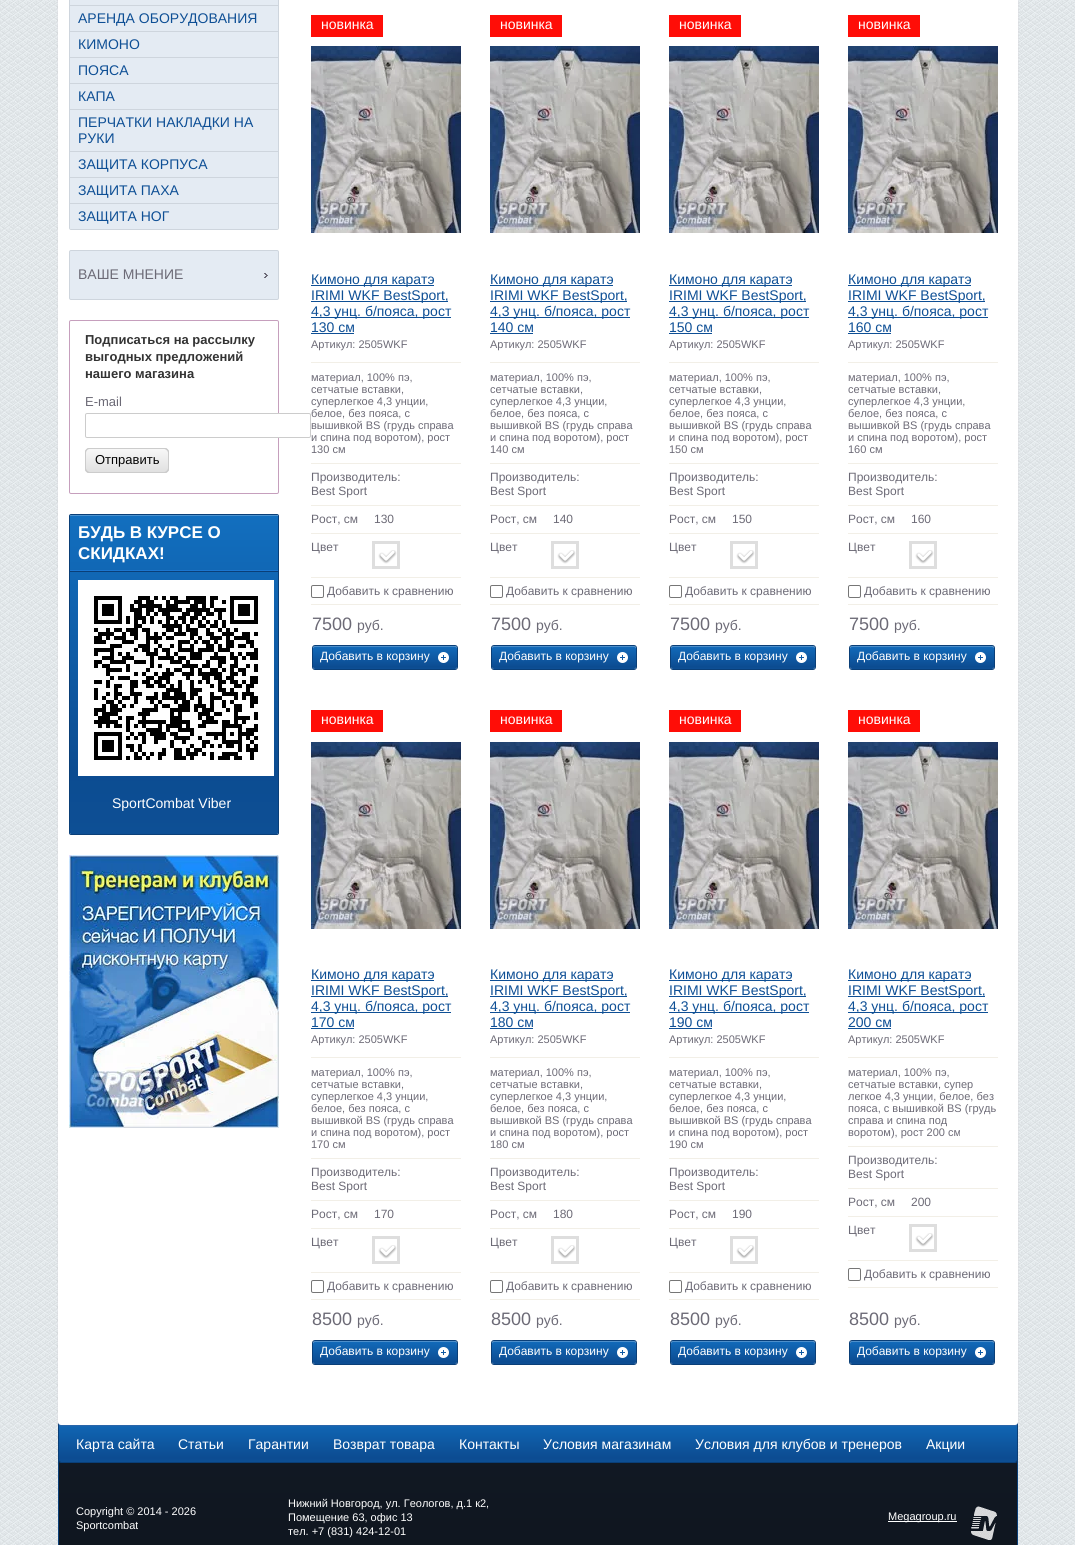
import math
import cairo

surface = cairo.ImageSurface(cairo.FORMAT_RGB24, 1075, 1545)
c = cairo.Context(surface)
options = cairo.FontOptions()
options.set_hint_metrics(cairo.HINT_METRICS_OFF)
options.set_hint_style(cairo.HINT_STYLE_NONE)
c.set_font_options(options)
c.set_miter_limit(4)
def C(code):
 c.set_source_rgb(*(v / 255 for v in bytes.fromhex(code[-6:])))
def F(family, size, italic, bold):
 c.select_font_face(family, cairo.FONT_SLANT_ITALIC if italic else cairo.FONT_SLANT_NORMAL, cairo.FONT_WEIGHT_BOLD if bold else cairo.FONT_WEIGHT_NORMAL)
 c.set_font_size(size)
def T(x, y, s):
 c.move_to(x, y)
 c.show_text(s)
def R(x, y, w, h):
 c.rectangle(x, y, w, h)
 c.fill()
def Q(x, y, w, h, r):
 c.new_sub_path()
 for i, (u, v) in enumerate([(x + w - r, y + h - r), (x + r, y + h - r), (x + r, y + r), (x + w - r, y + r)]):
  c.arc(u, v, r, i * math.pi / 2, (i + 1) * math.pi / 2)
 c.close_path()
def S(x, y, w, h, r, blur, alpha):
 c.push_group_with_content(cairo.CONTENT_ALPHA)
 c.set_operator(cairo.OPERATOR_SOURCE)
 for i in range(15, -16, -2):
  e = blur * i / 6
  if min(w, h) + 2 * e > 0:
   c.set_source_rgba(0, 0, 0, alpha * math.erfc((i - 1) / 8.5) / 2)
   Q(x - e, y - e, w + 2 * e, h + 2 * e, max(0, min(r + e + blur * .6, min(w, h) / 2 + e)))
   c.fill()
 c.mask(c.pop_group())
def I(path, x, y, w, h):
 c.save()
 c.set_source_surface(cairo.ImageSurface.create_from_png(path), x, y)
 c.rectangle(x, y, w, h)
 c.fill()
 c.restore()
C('ffffff')
c.paint()
I('1.png',0,0,1075,1545)
gradient = cairo.LinearGradient(538,1426,538,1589)
gradient.add_color_stop_rgba(0,0.071,0.102,0.145,1)
gradient.add_color_stop_rgba(1,0.055,0.078,0.114,1)
c.set_source(gradient)
c.new_path()
c.move_to(60,1426)
c.line_to(1016,1426)
c.curve_to(1017,1426,1017,1426,1017,1427)
c.line_to(1017,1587)
c.curve_to(1017,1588,1017,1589,1016,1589)
c.line_to(60,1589)
c.curve_to(59,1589,59,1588,59,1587)
c.line_to(59,1427)
c.curve_to(59,1426,59,1426,60,1426)
c.close_path()
c.fill()
gradient = cairo.LinearGradient(538,1422,538,1462)
gradient.add_color_stop_rgba(0,0.067,0.408,0.718,1)
gradient.add_color_stop_rgba(.9,0.047,0.298,0.569,1)
gradient.add_color_stop_rgba(1,0.051,0.31,0.584,1)
c.set_source(gradient)
Q(59,1422,958,40,2)
c.fill()
C('0a3f78')
R(1017,1460,1,85)
R(58,1460,1,85)
Q(58.5,1421.5,959,41,2.5)
c.set_line_width(1)
c.stroke()
C('936682')
S(58,-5,960,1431,3,.5,.2)
C('ffffff')
Q(58,-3,960,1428,3)
c.fill()
C('e4ebf3')
Q(70,-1,208,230,1)
c.fill()
Q(69.5,-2.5,209,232,1.5)
C('ced5dd')
c.stroke()
R(70,5,208,1)
F('Liberation Sans',14,0,0)
C('0e4f95')
T(78,23,'АРЕНДА ОБОРУДОВАНИЯ')
C('ced5dd')
R(70,31,208,1)
C('0e4f95')
T(78,49,'КИМОНО')
C('ced5dd')
R(70,57,208,1)
C('0e4f95')
T(78,75,'ПОЯСА')
C('ced5dd')
R(70,83,208,1)
C('0e4f95')
T(78,101,'КАПА')
C('ced5dd')
R(70,109,208,1)
C('0e4f95')
T(78,127,'ПЕРЧАТКИ НАКЛАДКИ НА')
T(78,143,'РУКИ')
C('ced5dd')
R(70,151,208,1)
C('0e4f95')
T(78,169,'ЗАЩИТА КОРПУСА')
C('ced5dd')
R(70,177,208,1)
C('0e4f95')
T(78,195,'ЗАЩИТА ПАХА')
C('ced5dd')
R(70,203,208,1)
C('0e4f95')
T(78,221,'ЗАЩИТА НОГ')
C('e4ebf3')
Q(69.5,250.5,209,49,1.5)
c.fill_preserve()
C('ced5dd')
c.stroke()
C('6c6a76')
T(78,279,'ВАШЕ МНЕНИЕ')
I('2.png',264,273,4,5)
Q(69.5,320.5,209,173,1.5)
C('c69fbd')
c.stroke()
F('Liberation Sans',13,0,1)
C('333333')
T(85,344,'Подписаться на рассылку')
T(85,361,'выгодных предложений')
T(85,378,'нашего магазина')
F('Liberation Sans',13,0,0)
C('6c6a76')
T(85,406,'E-mail')
C('ffffff')
Q(85.5,413.5,225,24,1.5)
c.fill_preserve()
C('cccccc')
c.stroke()
gradient = cairo.LinearGradient(127,448,127,473)
gradient.add_color_stop_rgba(0,0.973,0.973,0.973,1)
gradient.add_color_stop_rgba(1,0.875,0.875,0.875,1)
c.set_source(gradient)
Q(85,448,84,25,4)
c.fill()
C('cccccc')
c.new_path()
c.move_to(87,449)
c.curve_to(86,449,85,451,85,452)
c.line_to(85,469)
c.curve_to(85,471,87,473,89,473)
c.line_to(165,473)
c.curve_to(166,473,168,472,168,471)
c.line_to(166,472)
c.line_to(90,472)
c.curve_to(88,472,86,470,86,468)
c.line_to(86,451)
c.close_path()
c.fill()
c.new_path()
c.move_to(88,449)
c.line_to(164,449)
c.curve_to(166,449,168,451,168,453)
c.line_to(168,470)
c.line_to(167,472)
c.curve_to(168,472,169,470,169,469)
c.line_to(169,452)
c.curve_to(169,450,167,448,165,448)
c.line_to(89,448)
c.curve_to(88,448,86,449,86,450)
c.close_path()
c.fill()
c.new_path()
c.move_to(86,471)
c.curve_to(86,472,88,473,89,473)
c.line_to(165,473)
c.curve_to(167,473,169,471,169,469)
c.line_to(169,452)
c.curve_to(169,451,168,449,167,449)
c.line_to(168,451)
c.line_to(168,468)
c.curve_to(168,470,166,472,164,472)
c.line_to(88,472)
c.close_path()
c.fill()
c.new_path()
c.move_to(90,449)
c.line_to(166,449)
c.line_to(168,450)
c.curve_to(168,449,166,448,165,448)
c.line_to(89,448)
c.curve_to(87,448,85,450,85,452)
c.line_to(85,469)
c.curve_to(85,470,86,472,87,472)
c.curve_to(85,470,86,464,86,462)
c.curve_to(86,458,84,449,90,449)
c.close_path()
c.fill()
C('040404')
T(95,464,'Отправить')
gradient = cairo.LinearGradient(174,515,174,834)
gradient.add_color_stop_rgba(0,0.071,0.435,0.749,1)
gradient.add_color_stop_rgba(.8,0.047,0.298,0.569,1)
gradient.add_color_stop_rgba(1,0.051,0.31,0.584,1)
c.set_source(gradient)
Q(70,515,208,319,1)
c.fill()
c.set_source_rgba(1,1,1,0.25)
c.new_path()
c.move_to(71,516)
c.line_to(278,516)
c.line_to(278,517)
c.line_to(278,515)
c.line_to(277,515)
c.line_to(71,515)
c.curve_to(70,515,70,516,70,517)
c.curve_to(70,516,70,516,71,516)
c.close_path()
c.fill()
Q(69.5,514.5,209,320,1.5)
C('0a3f78')
c.stroke()
C('1b76d0')
R(70,570,208,1)
F('Liberation Sans',17,0,1)
C('ffffff')
T(78,538,'БУДЬ В КУРСЕ О')
T(78,559,'СКИДКАХ!')
C('0a3f78')
R(70,571,208,1)
I('3.png',78,580,196,196)
F('Liberation Sans',14,0,0)
C('ffffff')
T(112,808,'SportCombat Viber')
I('4.png',69,855,210,273)
C('ff0d07')
R(311,15,72,22)
C('ffffff')
T(321,29,'новинка')
I('5.png',311,46,150,187)
C('0e4f95')
R(311,285,123,1)
T(311,284,'Кимоно для каратэ')
R(311,301,137,1)
T(311,300,'IRIMI WKF BestSport,')
R(311,317,140,1)
T(311,316,'4,3 унц. б/пояса, рост')
T(311,332,'130 см')
R(311,333,43,1)
F('Liberation Sans',11,0,0)
C('6c6a76')
T(311,348,'Артикул: 2505WKF')
C('f2efe7')
R(311,362,150,1)
C('6c6a76')
T(311,381,'материал, 100% пэ,')
T(311,393,'сетчатые вставки,')
T(311,405,'суперлегкое 4,3 унции,')
T(311,417,'белое, без пояса, с')
T(311,429,'вышивкой BS (грудь справа')
T(311,441,'и спина под воротом), рост')
T(311,453,'130 см')
C('f2efe7')
R(311,463,150,1)
R(311,505,150,1)
F('Liberation Sans',12,0,0)
C('6c6a76')
T(311,481,'Производитель:')
T(311,495,'Best Sport')
C('f2efe7')
R(311,533,150,1)
C('6c6a76')
T(311,523,'Рост, см')
T(374,523,'130')
C('f2efe7')
R(311,577,150,1)
C('6c6a76')
T(311,551,'Цвет')
c.rectangle(374.5,543.5,23,23)
C('dedede')
c.stroke()
I('6.png',378,550,19,14)
c.rectangle(373,542,26,26)
c.set_line_width(2)
c.stroke()
C('f2efe7')
R(311,604,150,1)
Q(311.5,585.5,12,12,1.5)
C('767676')
c.set_line_width(1)
c.stroke()
C('6c6a76')
T(327,595,'Добавить к сравнению')
F('Liberation Sans',18,0,0)
T(312,630,'7500')
F('Liberation Sans',14,0,0)
T(357,630,'руб.')
gradient = cairo.LinearGradient(385,646,385,669)
gradient.add_color_stop_rgba(0,0.071,0.42,0.733,1)
gradient.add_color_stop_rgba(.9,0.047,0.298,0.569,1)
gradient.add_color_stop_rgba(1,0.051,0.31,0.584,1)
c.set_source(gradient)
Q(313,646,144,23,2)
c.fill()
c.set_source_rgba(1,1,1,0.25)
c.new_path()
c.move_to(315,647)
c.line_to(455,647)
c.curve_to(456,647,457,648,457,649)
c.curve_to(457,648,457,647,456,646)
c.line_to(315,646)
c.line_to(313,647)
c.line_to(313,649)
c.curve_to(313,648,314,647,315,647)
c.close_path()
c.fill()
Q(312.5,645.5,145,24,2.5)
C('0a3f78')
c.stroke()
I('7.png',438,652,11,11)
F('Liberation Sans',12,0,0)
C('ffffff')
T(320,660,'Добавить в корзину')
C('ff0d07')
R(490,15,72,22)
F('Liberation Sans',14,0,0)
C('ffffff')
T(500,29,'новинка')
I('5.png',490,46,150,187)
C('0e4f95')
R(490,285,123,1)
T(490,284,'Кимоно для каратэ')
R(490,301,137,1)
T(490,300,'IRIMI WKF BestSport,')
R(490,317,140,1)
T(490,316,'4,3 унц. б/пояса, рост')
T(490,332,'140 см')
R(490,333,43,1)
F('Liberation Sans',11,0,0)
C('6c6a76')
T(490,348,'Артикул: 2505WKF')
C('f2efe7')
R(490,362,150,1)
C('6c6a76')
T(490,381,'материал, 100% пэ,')
T(490,393,'сетчатые вставки,')
T(490,405,'суперлегкое 4,3 унции,')
T(490,417,'белое, без пояса, с')
T(490,429,'вышивкой BS (грудь справа')
T(490,441,'и спина под воротом), рост')
T(490,453,'140 см')
C('f2efe7')
R(490,463,150,1)
R(490,505,150,1)
F('Liberation Sans',12,0,0)
C('6c6a76')
T(490,481,'Производитель:')
T(490,495,'Best Sport')
C('f2efe7')
R(490,533,150,1)
C('6c6a76')
T(490,523,'Рост, см')
T(553,523,'140')
C('f2efe7')
R(490,577,150,1)
C('6c6a76')
T(490,551,'Цвет')
c.rectangle(553.5,543.5,23,23)
C('dedede')
c.stroke()
I('6.png',557,550,19,14)
c.rectangle(552,542,26,26)
c.set_line_width(2)
c.stroke()
C('f2efe7')
R(490,604,150,1)
Q(490.5,585.5,12,12,1.5)
C('767676')
c.set_line_width(1)
c.stroke()
C('6c6a76')
T(506,595,'Добавить к сравнению')
F('Liberation Sans',18,0,0)
T(491,630,'7500')
F('Liberation Sans',14,0,0)
T(536,630,'руб.')
gradient = cairo.LinearGradient(564,646,564,669)
gradient.add_color_stop_rgba(0,0.071,0.42,0.733,1)
gradient.add_color_stop_rgba(.9,0.047,0.298,0.569,1)
gradient.add_color_stop_rgba(1,0.051,0.31,0.584,1)
c.set_source(gradient)
Q(492,646,144,23,2)
c.fill()
c.set_source_rgba(1,1,1,0.25)
c.new_path()
c.move_to(494,647)
c.line_to(634,647)
c.curve_to(635,647,636,648,636,649)
c.line_to(636,647)
c.line_to(634,646)
c.line_to(493,646)
c.curve_to(492,647,492,648,492,649)
c.curve_to(492,648,493,647,494,647)
c.close_path()
c.fill()
Q(491.5,645.5,145,24,2.5)
C('0a3f78')
c.stroke()
I('7.png',617,652,11,11)
F('Liberation Sans',12,0,0)
C('ffffff')
T(499,660,'Добавить в корзину')
C('ff0d07')
R(669,15,72,22)
F('Liberation Sans',14,0,0)
C('ffffff')
T(679,29,'новинка')
I('5.png',669,46,150,187)
C('0e4f95')
R(669,285,123,1)
T(669,284,'Кимоно для каратэ')
R(669,301,137,1)
T(669,300,'IRIMI WKF BestSport,')
R(669,317,140,1)
T(669,316,'4,3 унц. б/пояса, рост')
T(669,332,'150 см')
R(669,333,43,1)
F('Liberation Sans',11,0,0)
C('6c6a76')
T(669,348,'Артикул: 2505WKF')
C('f2efe7')
R(669,362,150,1)
C('6c6a76')
T(669,381,'материал, 100% пэ,')
T(669,393,'сетчатые вставки,')
T(669,405,'суперлегкое 4,3 унции,')
T(669,417,'белое, без пояса, с')
T(669,429,'вышивкой BS (грудь справа')
T(669,441,'и спина под воротом), рост')
T(669,453,'150 см')
C('f2efe7')
R(669,463,150,1)
R(669,505,150,1)
F('Liberation Sans',12,0,0)
C('6c6a76')
T(669,481,'Производитель:')
T(669,495,'Best Sport')
C('f2efe7')
R(669,533,150,1)
C('6c6a76')
T(669,523,'Рост, см')
T(732,523,'150')
C('f2efe7')
R(669,577,150,1)
C('6c6a76')
T(669,551,'Цвет')
c.rectangle(732.5,543.5,23,23)
C('dedede')
c.stroke()
I('6.png',736,550,19,14)
c.rectangle(731,542,26,26)
c.set_line_width(2)
c.stroke()
C('f2efe7')
R(669,604,150,1)
Q(669.5,585.5,12,12,1.5)
C('767676')
c.set_line_width(1)
c.stroke()
C('6c6a76')
T(685,595,'Добавить к сравнению')
F('Liberation Sans',18,0,0)
T(670,630,'7500')
F('Liberation Sans',14,0,0)
T(715,630,'руб.')
gradient = cairo.LinearGradient(743,646,743,669)
gradient.add_color_stop_rgba(0,0.071,0.42,0.733,1)
gradient.add_color_stop_rgba(.9,0.047,0.298,0.569,1)
gradient.add_color_stop_rgba(1,0.051,0.31,0.584,1)
c.set_source(gradient)
Q(671,646,144,23,2)
c.fill()
c.set_source_rgba(1,1,1,0.25)
c.new_path()
c.move_to(673,647)
c.line_to(813,647)
c.curve_to(814,647,815,648,815,649)
c.curve_to(815,648,815,647,814,646)
c.line_to(673,646)
c.line_to(671,647)
c.line_to(671,649)
c.curve_to(671,648,672,647,673,647)
c.close_path()
c.fill()
Q(670.5,645.5,145,24,2.5)
C('0a3f78')
c.stroke()
I('7.png',796,652,11,11)
F('Liberation Sans',12,0,0)
C('ffffff')
T(678,660,'Добавить в корзину')
C('ff0d07')
R(848,15,72,22)
F('Liberation Sans',14,0,0)
C('ffffff')
T(858,29,'новинка')
I('5.png',848,46,150,187)
C('0e4f95')
R(848,285,123,1)
T(848,284,'Кимоно для каратэ')
R(848,301,137,1)
T(848,300,'IRIMI WKF BestSport,')
R(848,317,140,1)
T(848,316,'4,3 унц. б/пояса, рост')
T(848,332,'160 см')
R(848,333,43,1)
F('Liberation Sans',11,0,0)
C('6c6a76')
T(848,348,'Артикул: 2505WKF')
C('f2efe7')
R(848,362,150,1)
C('6c6a76')
T(848,381,'материал, 100% пэ,')
T(848,393,'сетчатые вставки,')
T(848,405,'суперлегкое 4,3 унции,')
T(848,417,'белое, без пояса, с')
T(848,429,'вышивкой BS (грудь справа')
T(848,441,'и спина под воротом), рост')
T(848,453,'160 см')
C('f2efe7')
R(848,463,150,1)
R(848,505,150,1)
F('Liberation Sans',12,0,0)
C('6c6a76')
T(848,481,'Производитель:')
T(848,495,'Best Sport')
C('f2efe7')
R(848,533,150,1)
C('6c6a76')
T(848,523,'Рост, см')
T(911,523,'160')
C('f2efe7')
R(848,577,150,1)
C('6c6a76')
T(848,551,'Цвет')
c.rectangle(911.5,543.5,23,23)
C('dedede')
c.stroke()
I('6.png',915,550,19,14)
c.rectangle(910,542,26,26)
c.set_line_width(2)
c.stroke()
C('f2efe7')
R(848,604,150,1)
Q(848.5,585.5,12,12,1.5)
C('767676')
c.set_line_width(1)
c.stroke()
C('6c6a76')
T(864,595,'Добавить к сравнению')
F('Liberation Sans',18,0,0)
T(849,630,'7500')
F('Liberation Sans',14,0,0)
T(894,630,'руб.')
gradient = cairo.LinearGradient(922,646,922,669)
gradient.add_color_stop_rgba(0,0.071,0.42,0.733,1)
gradient.add_color_stop_rgba(.9,0.047,0.298,0.569,1)
gradient.add_color_stop_rgba(1,0.051,0.31,0.584,1)
c.set_source(gradient)
Q(850,646,144,23,2)
c.fill()
c.set_source_rgba(1,1,1,0.25)
c.new_path()
c.move_to(852,647)
c.line_to(992,647)
c.curve_to(993,647,994,648,994,649)
c.curve_to(994,648,994,647,993,646)
c.line_to(852,646)
c.line_to(850,647)
c.line_to(850,649)
c.curve_to(850,648,851,647,852,647)
c.close_path()
c.fill()
Q(849.5,645.5,145,24,2.5)
C('0a3f78')
c.stroke()
I('7.png',975,652,11,11)
F('Liberation Sans',12,0,0)
C('ffffff')
T(857,660,'Добавить в корзину')
C('ff0d07')
R(311,710,72,22)
F('Liberation Sans',14,0,0)
C('ffffff')
T(321,724,'новинка')
I('5.png',311,742,150,187)
C('0e4f95')
R(311,980,123,1)
T(311,979,'Кимоно для каратэ')
R(311,996,137,1)
T(311,995,'IRIMI WKF BestSport,')
R(311,1012,140,1)
T(311,1011,'4,3 унц. б/пояса, рост')
T(311,1027,'170 см')
R(311,1028,43,1)
F('Liberation Sans',11,0,0)
C('6c6a76')
T(311,1043,'Артикул: 2505WKF')
C('f2efe7')
R(311,1057,150,1)
C('6c6a76')
T(311,1076,'материал, 100% пэ,')
T(311,1088,'сетчатые вставки,')
T(311,1100,'суперлегкое 4,3 унции,')
T(311,1112,'белое, без пояса, с')
T(311,1124,'вышивкой BS (грудь справа')
T(311,1136,'и спина под воротом), рост')
T(311,1148,'170 см')
C('f2efe7')
R(311,1158,150,1)
R(311,1200,150,1)
F('Liberation Sans',12,0,0)
C('6c6a76')
T(311,1176,'Производитель:')
T(311,1190,'Best Sport')
C('f2efe7')
R(311,1228,150,1)
C('6c6a76')
T(311,1218,'Рост, см')
T(374,1218,'170')
C('f2efe7')
R(311,1272,150,1)
C('6c6a76')
T(311,1246,'Цвет')
c.rectangle(374.5,1238.5,23,23)
C('dedede')
c.stroke()
I('6.png',378,1245,19,14)
c.rectangle(373,1237,26,26)
c.set_line_width(2)
c.stroke()
C('f2efe7')
R(311,1299,150,1)
Q(311.5,1280.5,12,12,1.5)
C('767676')
c.set_line_width(1)
c.stroke()
C('6c6a76')
T(327,1290,'Добавить к сравнению')
F('Liberation Sans',18,0,0)
T(312,1325,'8500')
F('Liberation Sans',14,0,0)
T(357,1325,'руб.')
gradient = cairo.LinearGradient(385,1341,385,1364)
gradient.add_color_stop_rgba(0,0.071,0.42,0.733,1)
gradient.add_color_stop_rgba(.9,0.047,0.298,0.569,1)
gradient.add_color_stop_rgba(1,0.051,0.31,0.584,1)
c.set_source(gradient)
Q(313,1341,144,23,2)
c.fill()
c.set_source_rgba(1,1,1,0.25)
c.new_path()
c.move_to(315,1342)
c.line_to(455,1342)
c.curve_to(456,1342,457,1343,457,1344)
c.curve_to(457,1343,457,1342,456,1341)
c.line_to(315,1341)
c.line_to(313,1342)
c.line_to(313,1344)
c.curve_to(313,1343,314,1342,315,1342)
c.close_path()
c.fill()
Q(312.5,1340.5,145,24,2.5)
C('0a3f78')
c.stroke()
I('7.png',438,1347,11,11)
F('Liberation Sans',12,0,0)
C('ffffff')
T(320,1355,'Добавить в корзину')
C('ff0d07')
R(490,710,72,22)
F('Liberation Sans',14,0,0)
C('ffffff')
T(500,724,'новинка')
I('5.png',490,742,150,187)
C('0e4f95')
R(490,980,123,1)
T(490,979,'Кимоно для каратэ')
R(490,996,137,1)
T(490,995,'IRIMI WKF BestSport,')
R(490,1012,140,1)
T(490,1011,'4,3 унц. б/пояса, рост')
T(490,1027,'180 см')
R(490,1028,43,1)
F('Liberation Sans',11,0,0)
C('6c6a76')
T(490,1043,'Артикул: 2505WKF')
C('f2efe7')
R(490,1057,150,1)
C('6c6a76')
T(490,1076,'материал, 100% пэ,')
T(490,1088,'сетчатые вставки,')
T(490,1100,'суперлегкое 4,3 унции,')
T(490,1112,'белое, без пояса, с')
T(490,1124,'вышивкой BS (грудь справа')
T(490,1136,'и спина под воротом), рост')
T(490,1148,'180 см')
C('f2efe7')
R(490,1158,150,1)
R(490,1200,150,1)
F('Liberation Sans',12,0,0)
C('6c6a76')
T(490,1176,'Производитель:')
T(490,1190,'Best Sport')
C('f2efe7')
R(490,1228,150,1)
C('6c6a76')
T(490,1218,'Рост, см')
T(553,1218,'180')
C('f2efe7')
R(490,1272,150,1)
C('6c6a76')
T(490,1246,'Цвет')
c.rectangle(553.5,1238.5,23,23)
C('dedede')
c.stroke()
I('6.png',557,1245,19,14)
c.rectangle(552,1237,26,26)
c.set_line_width(2)
c.stroke()
C('f2efe7')
R(490,1299,150,1)
Q(490.5,1280.5,12,12,1.5)
C('767676')
c.set_line_width(1)
c.stroke()
C('6c6a76')
T(506,1290,'Добавить к сравнению')
F('Liberation Sans',18,0,0)
T(491,1325,'8500')
F('Liberation Sans',14,0,0)
T(536,1325,'руб.')
gradient = cairo.LinearGradient(564,1341,564,1364)
gradient.add_color_stop_rgba(0,0.071,0.42,0.733,1)
gradient.add_color_stop_rgba(.9,0.047,0.298,0.569,1)
gradient.add_color_stop_rgba(1,0.051,0.31,0.584,1)
c.set_source(gradient)
Q(492,1341,144,23,2)
c.fill()
c.set_source_rgba(1,1,1,0.25)
c.new_path()
c.move_to(494,1342)
c.line_to(634,1342)
c.curve_to(635,1342,636,1343,636,1344)
c.line_to(636,1342)
c.line_to(634,1341)
c.line_to(493,1341)
c.curve_to(492,1342,492,1343,492,1344)
c.curve_to(492,1343,493,1342,494,1342)
c.close_path()
c.fill()
Q(491.5,1340.5,145,24,2.5)
C('0a3f78')
c.stroke()
I('7.png',617,1347,11,11)
F('Liberation Sans',12,0,0)
C('ffffff')
T(499,1355,'Добавить в корзину')
C('ff0d07')
R(669,710,72,22)
F('Liberation Sans',14,0,0)
C('ffffff')
T(679,724,'новинка')
I('5.png',669,742,150,187)
C('0e4f95')
R(669,980,123,1)
T(669,979,'Кимоно для каратэ')
R(669,996,137,1)
T(669,995,'IRIMI WKF BestSport,')
R(669,1012,140,1)
T(669,1011,'4,3 унц. б/пояса, рост')
T(669,1027,'190 см')
R(669,1028,43,1)
F('Liberation Sans',11,0,0)
C('6c6a76')
T(669,1043,'Артикул: 2505WKF')
C('f2efe7')
R(669,1057,150,1)
C('6c6a76')
T(669,1076,'материал, 100% пэ,')
T(669,1088,'сетчатые вставки,')
T(669,1100,'суперлегкое 4,3 унции,')
T(669,1112,'белое, без пояса, с')
T(669,1124,'вышивкой BS (грудь справа')
T(669,1136,'и спина под воротом), рост')
T(669,1148,'190 см')
C('f2efe7')
R(669,1158,150,1)
R(669,1200,150,1)
F('Liberation Sans',12,0,0)
C('6c6a76')
T(669,1176,'Производитель:')
T(669,1190,'Best Sport')
C('f2efe7')
R(669,1228,150,1)
C('6c6a76')
T(669,1218,'Рост, см')
T(732,1218,'190')
C('f2efe7')
R(669,1272,150,1)
C('6c6a76')
T(669,1246,'Цвет')
c.rectangle(732.5,1238.5,23,23)
C('dedede')
c.stroke()
I('6.png',736,1245,19,14)
c.rectangle(731,1237,26,26)
c.set_line_width(2)
c.stroke()
C('f2efe7')
R(669,1299,150,1)
Q(669.5,1280.5,12,12,1.5)
C('767676')
c.set_line_width(1)
c.stroke()
C('6c6a76')
T(685,1290,'Добавить к сравнению')
F('Liberation Sans',18,0,0)
T(670,1325,'8500')
F('Liberation Sans',14,0,0)
T(715,1325,'руб.')
gradient = cairo.LinearGradient(743,1341,743,1364)
gradient.add_color_stop_rgba(0,0.071,0.42,0.733,1)
gradient.add_color_stop_rgba(.9,0.047,0.298,0.569,1)
gradient.add_color_stop_rgba(1,0.051,0.31,0.584,1)
c.set_source(gradient)
Q(671,1341,144,23,2)
c.fill()
c.set_source_rgba(1,1,1,0.25)
c.new_path()
c.move_to(673,1342)
c.line_to(813,1342)
c.curve_to(814,1342,815,1343,815,1344)
c.curve_to(815,1343,815,1342,814,1341)
c.line_to(673,1341)
c.line_to(671,1342)
c.line_to(671,1344)
c.curve_to(671,1343,672,1342,673,1342)
c.close_path()
c.fill()
Q(670.5,1340.5,145,24,2.5)
C('0a3f78')
c.stroke()
I('7.png',796,1347,11,11)
F('Liberation Sans',12,0,0)
C('ffffff')
T(678,1355,'Добавить в корзину')
C('ff0d07')
R(848,710,72,22)
F('Liberation Sans',14,0,0)
C('ffffff')
T(858,724,'новинка')
I('5.png',848,742,150,187)
C('0e4f95')
R(848,980,123,1)
T(848,979,'Кимоно для каратэ')
R(848,996,137,1)
T(848,995,'IRIMI WKF BestSport,')
R(848,1012,140,1)
T(848,1011,'4,3 унц. б/пояса, рост')
T(848,1027,'200 см')
R(848,1028,43,1)
F('Liberation Sans',11,0,0)
C('6c6a76')
T(848,1043,'Артикул: 2505WKF')
C('f2efe7')
R(848,1057,150,1)
C('6c6a76')
T(848,1076,'материал, 100% пэ,')
T(848,1088,'сетчатые вставки, супер')
T(848,1100,'легкое 4,3 унции, белое, без')
T(848,1112,'пояса, с вышивкой BS (грудь')
T(848,1124,'справа и спина под')
T(848,1136,'воротом), рост 200 см')
C('f2efe7')
R(848,1146,150,1)
R(848,1188,150,1)
F('Liberation Sans',12,0,0)
C('6c6a76')
T(848,1164,'Производитель:')
T(848,1178,'Best Sport')
C('f2efe7')
R(848,1216,150,1)
C('6c6a76')
T(848,1206,'Рост, см')
T(911,1206,'200')
C('f2efe7')
R(848,1260,150,1)
C('6c6a76')
T(848,1234,'Цвет')
c.rectangle(911.5,1226.5,23,23)
C('dedede')
c.stroke()
I('6.png',915,1233,19,14)
c.rectangle(910,1225,26,26)
c.set_line_width(2)
c.stroke()
C('f2efe7')
R(848,1287,150,1)
Q(848.5,1268.5,12,12,1.5)
C('767676')
c.set_line_width(1)
c.stroke()
C('6c6a76')
T(864,1278,'Добавить к сравнению')
F('Liberation Sans',18,0,0)
T(849,1325,'8500')
F('Liberation Sans',14,0,0)
T(894,1325,'руб.')
gradient = cairo.LinearGradient(922,1341,922,1364)
gradient.add_color_stop_rgba(0,0.071,0.42,0.733,1)
gradient.add_color_stop_rgba(.9,0.047,0.298,0.569,1)
gradient.add_color_stop_rgba(1,0.051,0.31,0.584,1)
c.set_source(gradient)
Q(850,1341,144,23,2)
c.fill()
c.set_source_rgba(1,1,1,0.25)
c.new_path()
c.move_to(852,1342)
c.line_to(992,1342)
c.curve_to(993,1342,994,1343,994,1344)
c.curve_to(994,1343,994,1342,993,1341)
c.line_to(852,1341)
c.line_to(850,1342)
c.line_to(850,1344)
c.curve_to(850,1343,851,1342,852,1342)
c.close_path()
c.fill()
Q(849.5,1340.5,145,24,2.5)
C('0a3f78')
c.stroke()
I('7.png',975,1347,11,11)
F('Liberation Sans',12,0,0)
C('ffffff')
T(857,1355,'Добавить в корзину')
F('Liberation Sans',14,0,0)
T(76,1449,'Карта сайта')
T(178,1449,'Статьи')
T(248,1449,'Гарантии')
T(333,1449,'Возврат товара')
T(459,1449,'Контакты')
T(543,1449,'Условия магазинам')
T(695,1449,'Условия для клубов и тренеров')
T(926,1449,'Акции')
F('Liberation Sans',11,0,0)
T(76,1515,'Copyright © 2014 - 2026')
T(76,1529,'Sportcombat')
T(288,1507,'Нижний Новгород, ул. Геологов, д.1 к2,')
T(288,1521,'Помещение 63, офис 13')
T(288,1535,'тел. +7 (831) 424-12-01')
I('8.png',971,1506,26,34)
R(888,1521,69,1)
T(888,1520,'Megagroup.ru')
surface.write_to_png('o.png')
